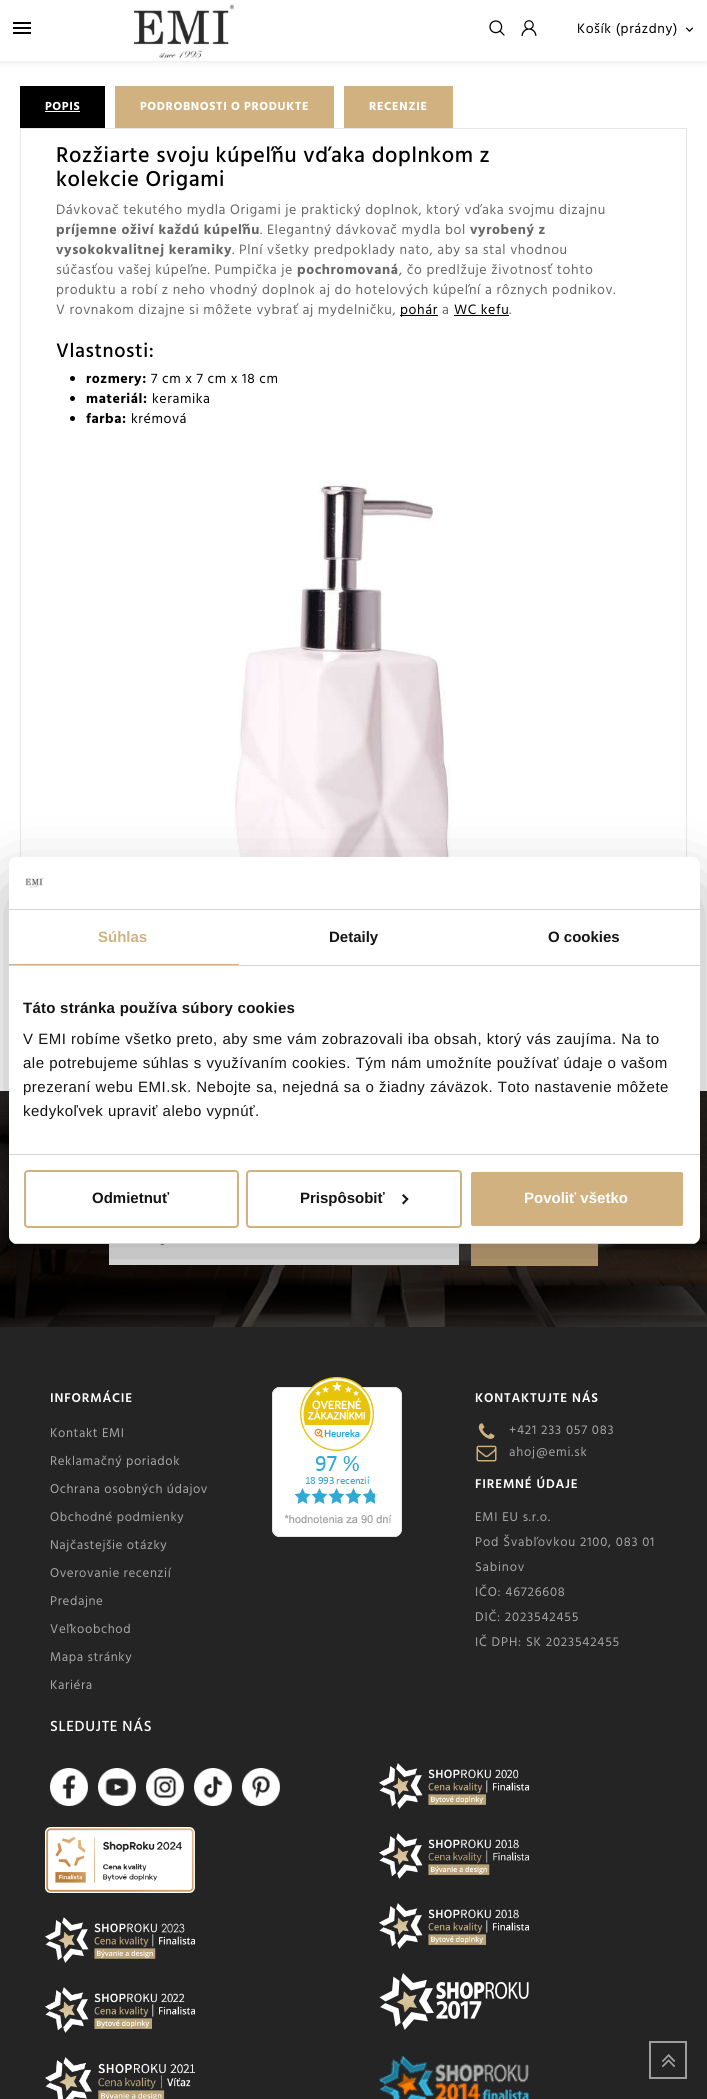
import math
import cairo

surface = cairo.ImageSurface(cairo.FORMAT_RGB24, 707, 2099)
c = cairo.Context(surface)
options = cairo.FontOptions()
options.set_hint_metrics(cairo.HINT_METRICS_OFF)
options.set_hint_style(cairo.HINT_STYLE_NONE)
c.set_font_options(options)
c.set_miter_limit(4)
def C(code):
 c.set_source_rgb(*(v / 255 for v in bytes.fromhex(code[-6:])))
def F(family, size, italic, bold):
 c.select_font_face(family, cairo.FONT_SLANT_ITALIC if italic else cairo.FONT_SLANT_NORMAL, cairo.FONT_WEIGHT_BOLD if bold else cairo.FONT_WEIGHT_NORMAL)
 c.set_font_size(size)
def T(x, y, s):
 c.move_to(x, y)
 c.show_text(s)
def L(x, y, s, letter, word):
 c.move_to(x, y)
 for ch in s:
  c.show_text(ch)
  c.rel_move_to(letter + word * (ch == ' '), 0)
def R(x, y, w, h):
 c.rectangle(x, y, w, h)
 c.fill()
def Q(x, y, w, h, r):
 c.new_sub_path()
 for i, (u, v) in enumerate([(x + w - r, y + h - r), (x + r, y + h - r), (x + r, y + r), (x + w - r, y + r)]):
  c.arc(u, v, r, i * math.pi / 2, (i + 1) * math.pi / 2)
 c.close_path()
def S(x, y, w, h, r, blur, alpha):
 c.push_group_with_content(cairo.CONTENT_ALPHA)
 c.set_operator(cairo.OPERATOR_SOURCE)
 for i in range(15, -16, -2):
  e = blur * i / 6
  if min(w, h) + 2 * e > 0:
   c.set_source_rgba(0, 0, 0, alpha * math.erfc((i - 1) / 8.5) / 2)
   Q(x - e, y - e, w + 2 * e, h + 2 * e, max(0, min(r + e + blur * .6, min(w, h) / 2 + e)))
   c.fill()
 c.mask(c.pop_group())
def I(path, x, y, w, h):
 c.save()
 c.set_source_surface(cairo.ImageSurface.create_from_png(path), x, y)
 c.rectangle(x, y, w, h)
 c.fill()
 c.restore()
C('ffffff')
c.paint()
C('000000')
S(0,0,707,61,0,4,.12)
C('ffffff')
R(0,0,707,61)
I('1.png',13,22,18,12)
I('2.png',134,4,100,54)
I('3.png',489,20,16,16)
I('4.png',521,20,16,16)
F('Hind Madurai',14,0,0)
C('000000')
L(577,33,'Košík (prázdny)',.6,0)
I('5.png',685,27,9,5)
R(20,86,85,42)
F('Hind Madurai',12,0,1)
C('ffffff')
L(45,110,'POPIS',.6,0)
R(45,111,35,1)
C('d2b181')
R(115,86,219,42)
C('ffffff')
L(140,110,'PODROBNOSTI O PRODUKTE',.6,0)
C('d2b181')
R(344,86,109,42)
C('ffffff')
L(369,110,'RECENZIE',.6,0)
c.rectangle(20.5,128.5,666,932)
C('e6e6e6')
c.set_line_width(1)
c.stroke()
F('Hind Madurai Medium',22,0,0)
C('000000')
L(56,162,'Rozžiarte svoju kúpeľňu vďaka doplnkom z',.6,0)
L(56,186,'kolekcie Origami',.6,0)
F('Hind Madurai',14,0,0)
C('676767')
L(56,214,'Dávkovač tekutého mydla Origami je praktický doplnok, ktorý vďaka svojmu dizajnu',.6,0)
F('Hind Madurai',14,0,1)
L(56,234,'príjemne oživí každú kúpeľňu',.6,0)
F('Hind Madurai',14,0,0)
L(260,234,'. Elegantný dávkovač mydla bol',.6,0)
F('Hind Madurai',14,0,1)
L(470,234,'vyrobený z',.6,0)
L(56,254,'vysokokvalitnej keramiky',.6,0)
F('Hind Madurai',14,0,0)
L(232,254,'. Plní všetky predpoklady nato, aby sa stal vhodnou',.6,0)
L(56,274,'súčasťou vašej kúpeľne. Pumpička je',.6,0)
F('Hind Madurai',14,0,1)
L(297,274,'pochromovaná',.6,0)
F('Hind Madurai',14,0,0)
L(399,274,', čo predlžuje životnosť tohto',.6,0)
L(56,294,'produktu a robí z neho vhodný doplnok aj do hotelových kúpeľní a rôznych podnikov.',.6,0)
L(56,314,'V rovnakom dizajne si môžete vybrať aj mydelničku,',.6,0)
C('000000')
R(400,315,38,1)
L(400,314,'pohár',.6,0)
C('676767')
L(442,314,'a',.6,0)
C('000000')
L(454,314,'WC kefu',.6,0)
R(454,315,55,1)
C('676767')
L(509,314,'.',.6,0)
F('Hind Madurai Medium',20,0,0)
C('000000')
L(56,357,'Vlastnosti:',.6,0)
c.new_path()
c.arc(72.5,378.5,2.5,0,2 * math.pi)
c.fill()
F('Hind Madurai',14,0,1)
L(86,383,'rozmery:',.6,0)
F('Hind Madurai',14,0,0)
L(151,383,'7 cm x 7 cm x 18 cm',.6,0)
c.new_path()
c.arc(72.5,398.5,2.5,0,2 * math.pi)
c.fill()
F('Hind Madurai',14,0,1)
L(86,403,'materiál:',.6,0)
F('Hind Madurai',14,0,0)
L(152,403,'keramika',.6,0)
c.new_path()
c.arc(72.5,418.5,2.5,0,2 * math.pi)
c.fill()
F('Hind Madurai',14,0,1)
L(86,423,'farba:',.6,0)
F('Hind Madurai',14,0,0)
L(131,423,'krémová',.6,0)
I('6.png',233,481,218,376)
C('242424')
R(0,1327,707,772)
I('7.png',0,1091,707,236)
C('ffffff')
R(109,1244,350,21)
F('Hind Madurai',13,0,0)
C('757575')
L(160,1248,'-',.8,0)
C('d2b181')
R(471,1244,127,22)
F('Hind Madurai SemiBold',13,0,0)
C('ffffff')
L(50,1402,'INFORMÁCIE',.8,0)
F('Hind Madurai',13,0,0)
C('a6a6a6')
L(50,1437,'Kontakt EMI',.6,0)
L(50,1465,'Reklamačný poriadok',.6,0)
L(50,1493,'Ochrana osobných údajov',.6,0)
L(50,1521,'Obchodné podmienky',.6,0)
L(50,1549,'Najčastejšie otázky',.6,0)
L(50,1577,'Overovanie recenzií',.6,0)
L(50,1605,'Predajne',.6,0)
L(50,1633,'Veľkoobchod',.6,0)
L(50,1661,'Mapa stránky',.6,0)
L(50,1689,'Kariéra',.6,0)
I('8.png',272,1377,130,160)
F('Hind Madurai SemiBold',13,0,0)
C('ffffff')
L(475,1402,'KONTAKTUJTE NÁS',.8,0)
I('9.png',478,1423,17,16)
F('Hind Madurai',13,0,0)
C('a6a6a6')
L(509,1434,'+421 233 057 083',.8,0)
I('10.png',476,1445,21,17)
L(509,1456,'ahoj@emi.sk',.8,0)
F('Hind Madurai SemiBold',13,0,0)
C('ffffff')
L(475,1488,'FIREMNÉ ÚDAJE',.8,0)
F('Hind Madurai',13,0,0)
C('a6a6a6')
L(475,1521,'EMI EU s.r.o.',.8,0)
L(475,1546,'Pod Švabľovkou 2100, 083 01',.8,0)
L(475,1571,'Sabinov',.8,0)
L(475,1596,'IČO: 46726608',.8,0)
L(475,1621,'DIČ: 2023542455',.8,0)
L(475,1646,'IČ DPH: SK 2023542455',.8,0)
F('Hind Madurai Medium',15,0,0)
C('ffffff')
L(50,1731,'SLEDUJTE NÁS',.6,0)
I('11.png',50,1768,38,38)
I('12.png',98,1768,38,38)
I('13.png',146,1768,38,38)
I('14.png',194,1768,38,38)
I('15.png',242,1768,38,38)
I('16.png',45,1827,150,66)
I('17.png',45,1917,150,46)
I('18.png',45,1987,150,46)
I('19.png',45,2057,150,42)
I('20.png',379,1763,150,46)
I('21.png',379,1833,150,46)
I('22.png',379,1903,150,46)
I('23.png',379,1973,150,57)
I('24.png',379,2056,150,43)
I('25.png',649,2041,38,38)
C('000000')
S(9,889,691,387,8,34,.3)
C('ffffff')
Q(9,857,691,387,8)
c.fill()
C('d6d6d6')
R(9,909,691,1)
I('26.png',25,877,19,11)
R(9,965,691,1)
C('d2b181')
R(9,964,230,1)
F('Liberation Sans',15,0,1)
T(98,942,'Súhlas')
C('141414')
T(329,942,'Detaily')
T(548,942,'O cookies')
C('d6d6d6')
R(9,1154,691,1)
C('141414')
L(23,1013,'Táto stránka používa súbory cookies',.25,0)
F('Liberation Sans',15,0,0)
L(23,1044,'V EMI robíme všetko preto, aby sme vám zobrazovali iba obsah, ktorý vás zaujíma. Na to',.5,0)
L(23,1068,'ale potrebujeme súhlas s využívaním cookies. Tým nám umožníte používať údaje o vašom',.5,0)
L(23,1092,'prezeraní webu EMI.sk. Nebojte sa, nejedná sa o žiadny záväzok. Toto nastavenie môžete',.5,0)
L(23,1116,'kedykoľvek upraviť alebo vypnúť.',.5,0)
c.save()
Q(9,857,691,387,8)
c.clip()
C('d6d6d6')
R(9,1243,691,1)
c.restore()
Q(25,1171,213,56,3)
C('d2b181')
c.set_line_width(2)
c.stroke()
F('Liberation Sans',15,0,1)
C('141414')
T(92,1203,'Odmietnuť')
Q(247,1171,214,56,3)
C('d2b181')
c.stroke()
C('141414')
T(300,1203,'Prispôsobiť')
c.new_path()
c.move_to(403.5,1194)
c.line_to(408.5,1199)
c.line_to(407,1200.5)
c.line_to(402,1195.5)
c.close_path()
c.fill()
c.new_path()
c.move_to(407,1198)
c.line_to(408.5,1199)
c.line_to(403.5,1204.5)
c.line_to(402,1203)
c.close_path()
c.fill()
C('d2b181')
Q(470,1171,214,56,3)
c.fill_preserve()
C('ffffff')
c.stroke()
T(524,1203,'Povoliť všetko')
surface.write_to_png('o.png')
